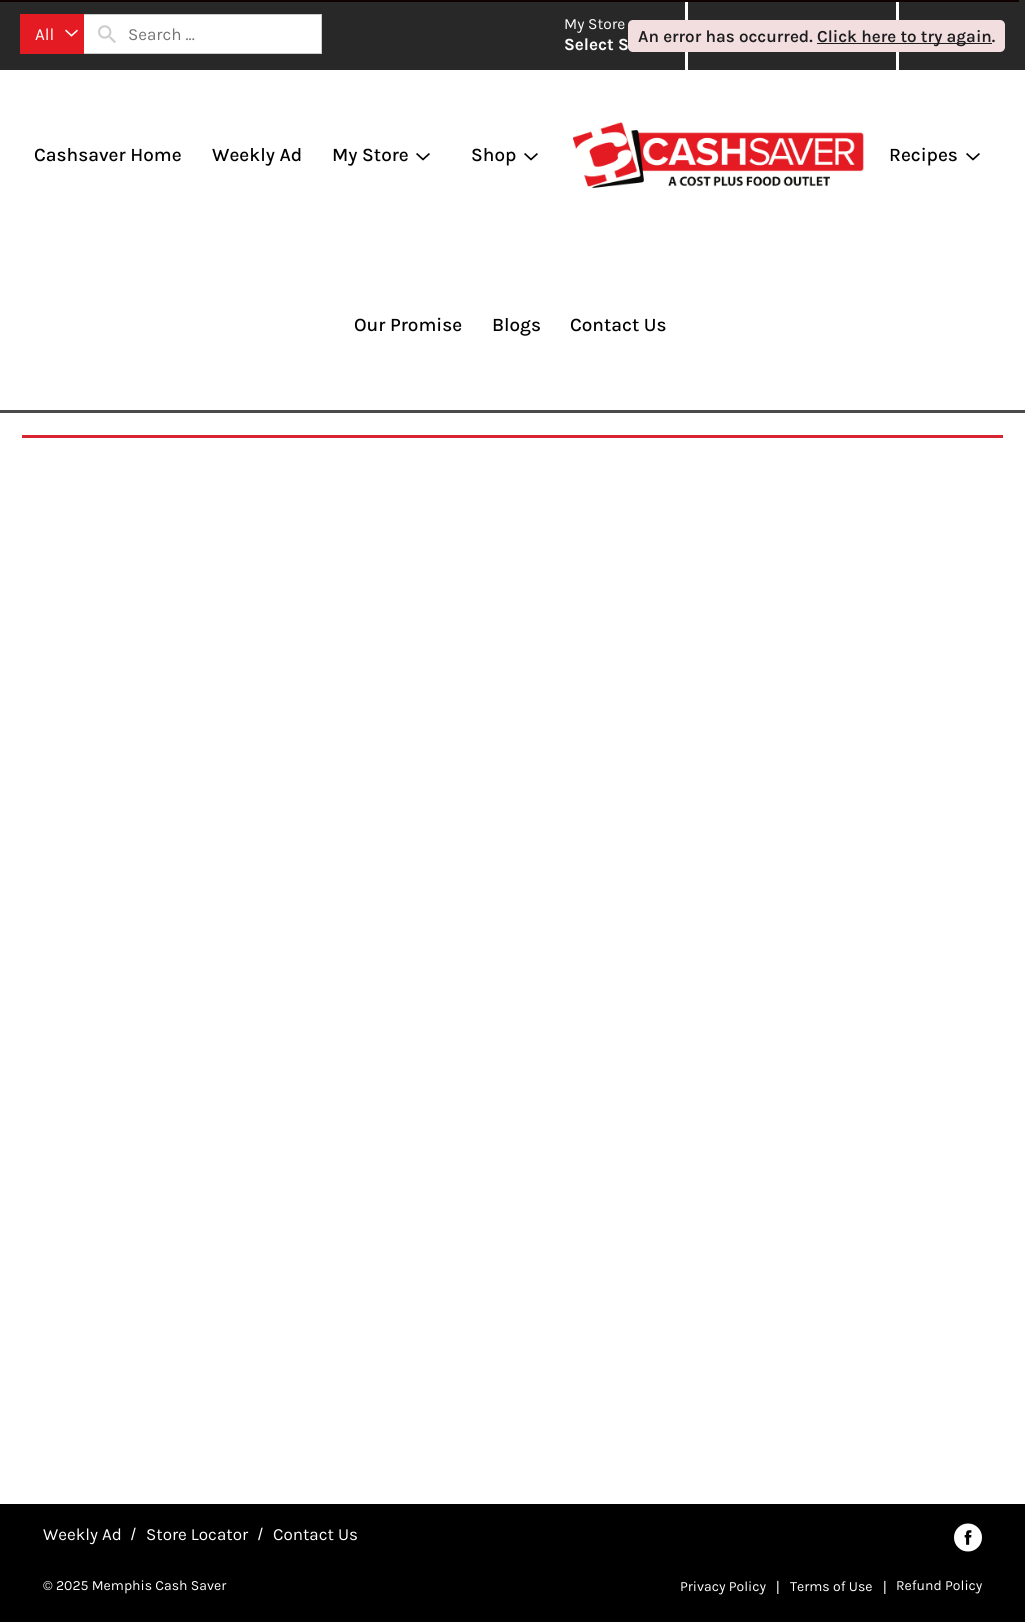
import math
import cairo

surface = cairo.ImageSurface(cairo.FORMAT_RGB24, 1025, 1622)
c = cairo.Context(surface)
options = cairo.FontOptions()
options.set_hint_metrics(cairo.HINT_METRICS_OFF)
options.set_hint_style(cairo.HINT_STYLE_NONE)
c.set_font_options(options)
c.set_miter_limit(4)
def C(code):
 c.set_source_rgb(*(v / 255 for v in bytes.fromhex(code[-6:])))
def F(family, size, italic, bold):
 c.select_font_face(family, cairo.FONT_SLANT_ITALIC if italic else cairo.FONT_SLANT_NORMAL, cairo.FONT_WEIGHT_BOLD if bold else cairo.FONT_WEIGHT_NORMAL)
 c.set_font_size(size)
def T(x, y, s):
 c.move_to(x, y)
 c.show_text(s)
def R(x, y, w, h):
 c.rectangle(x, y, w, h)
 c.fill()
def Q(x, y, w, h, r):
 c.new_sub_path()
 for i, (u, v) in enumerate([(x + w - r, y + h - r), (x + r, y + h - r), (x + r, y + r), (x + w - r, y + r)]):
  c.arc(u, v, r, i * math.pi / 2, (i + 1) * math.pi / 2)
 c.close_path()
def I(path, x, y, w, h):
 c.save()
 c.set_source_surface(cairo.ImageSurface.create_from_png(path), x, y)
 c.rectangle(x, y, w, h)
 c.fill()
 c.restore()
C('ffffff')
c.paint()
C('282828')
R(0,0,1025,70)
C('e51b24')
R(20,14,64,40)
F('Karla',17,0,0)
C('ffffff')
T(35,40,'All')
I('1.png',65,29,13,8)
R(84,15,237,38)
I('2.png',98,25,18,18)
C('cccccc')
R(84,14,238,1)
R(321,14,1,40)
R(84,53,238,1)
C('757575')
T(128,40,'Search ...')
C('ffffff')
R(685,0,3,70)
F('Karla',15.5,0,0)
T(564,29,'My Store')
F('Karla',17,0,1)
T(564,50,'Select S')
R(896,0,3,70)
C('4a4a4a')
R(0,410,1025,3)
F('Karla Medium',19,0,0)
C('000000')
T(34,161,'Cashsaver Home')
T(212,161,'Weekly Ad')
T(332,161,'My Store')
I('3.png',416,153,14,8)
T(471,161,'Shop')
I('3.png',524,153,14,8)
I('4.png',573,122,291,67)
T(889,161,'Recipes')
I('3.png',966,153,14,8)
T(354,331,'Our Promise')
T(492,331,'Blogs')
T(570,331,'Contact Us')
C('d72631')
R(22,435,981,3)
C('000000')
R(0,1504,1025,118)
F('Karla',17,0,0)
C('ffffff')
T(43,1540,'Weekly Ad')
F('Liberation Sans',17,0,0)
T(131,1540,'/')
F('Karla',17,0,0)
T(146,1540,'Store Locator')
F('Liberation Sans',17,0,0)
T(258,1540,'/')
F('Karla',17,0,0)
T(273,1540,'Contact Us')
I('5.png',954,1523,28,29)
F('Karla',14,0,0)
T(43,1590,'© 2025 Memphis Cash Saver')
T(680,1591,'Privacy Policy')
F('Liberation Sans',14,0,0)
T(776,1591,'|')
F('Karla',14,0,0)
T(790,1591,'Terms of Use')
F('Liberation Sans',14,0,0)
T(883,1591,'|')
F('Karla',14,0,0)
T(896,1590,'Refund Policy')
C('110202')
R(0,0,1019,2)
C('f2dede')
Q(628,20,377,32,5)
c.fill()
F('Karla SemiBold',17,0,0)
C('1d1d1f')
T(638,42,'An error has occurred.')
R(817,43,175,1)
T(817,42,'Click here to try again.')
surface.write_to_png('o.png')
